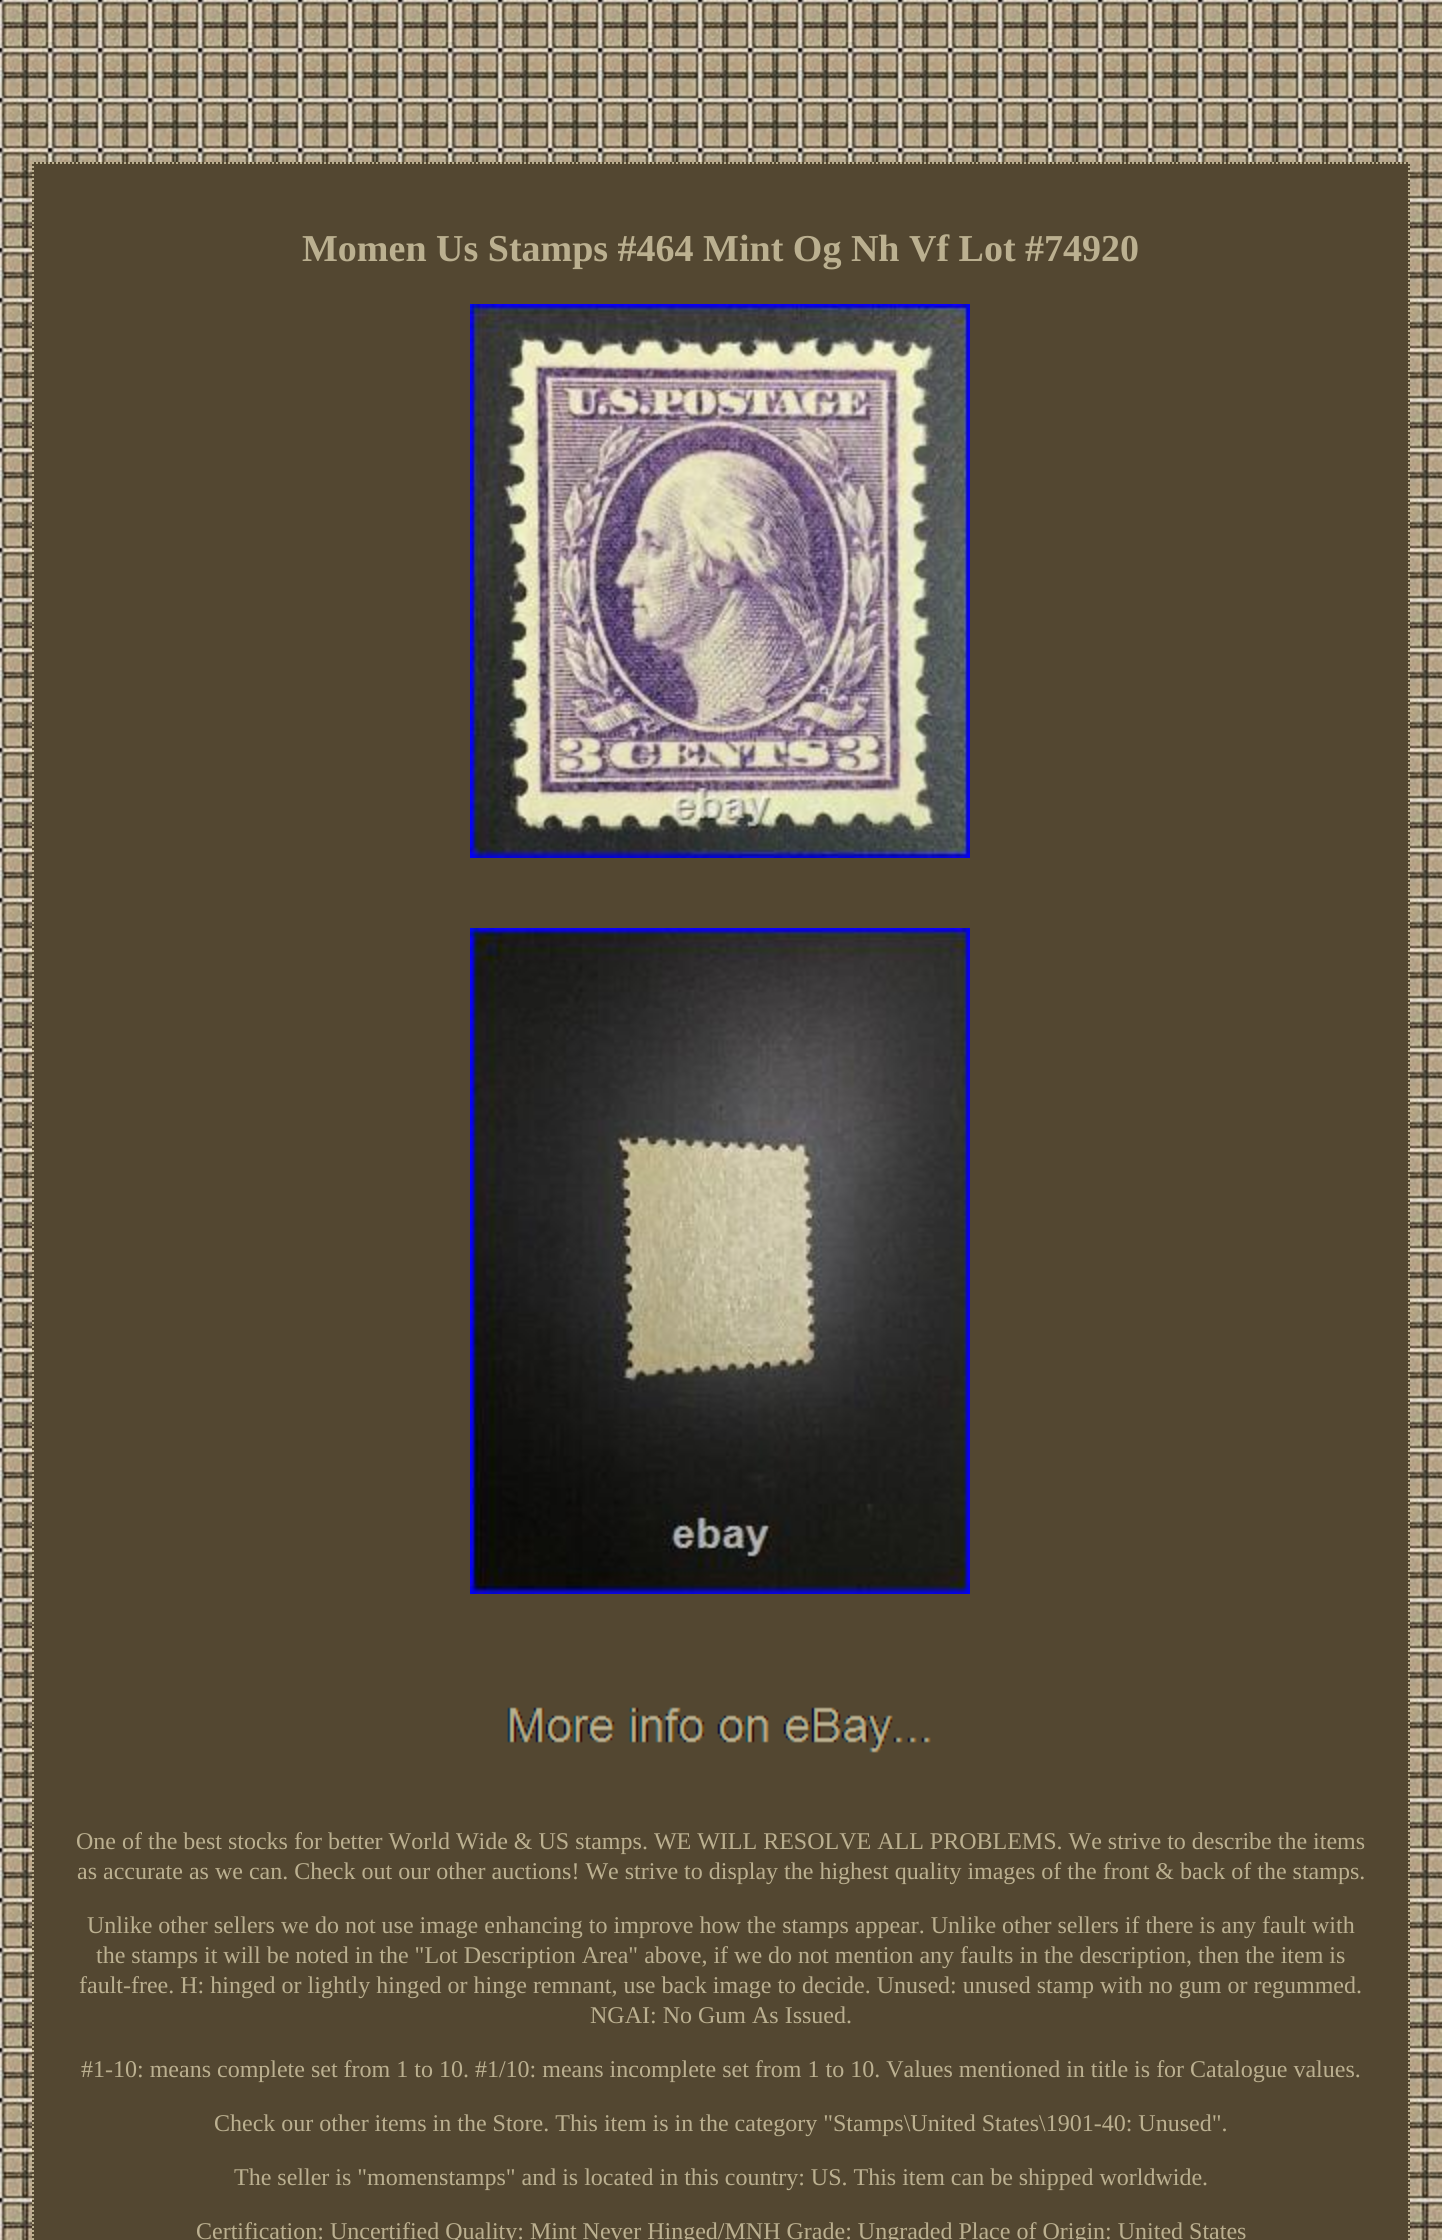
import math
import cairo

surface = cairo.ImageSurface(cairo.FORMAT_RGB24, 1442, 2240)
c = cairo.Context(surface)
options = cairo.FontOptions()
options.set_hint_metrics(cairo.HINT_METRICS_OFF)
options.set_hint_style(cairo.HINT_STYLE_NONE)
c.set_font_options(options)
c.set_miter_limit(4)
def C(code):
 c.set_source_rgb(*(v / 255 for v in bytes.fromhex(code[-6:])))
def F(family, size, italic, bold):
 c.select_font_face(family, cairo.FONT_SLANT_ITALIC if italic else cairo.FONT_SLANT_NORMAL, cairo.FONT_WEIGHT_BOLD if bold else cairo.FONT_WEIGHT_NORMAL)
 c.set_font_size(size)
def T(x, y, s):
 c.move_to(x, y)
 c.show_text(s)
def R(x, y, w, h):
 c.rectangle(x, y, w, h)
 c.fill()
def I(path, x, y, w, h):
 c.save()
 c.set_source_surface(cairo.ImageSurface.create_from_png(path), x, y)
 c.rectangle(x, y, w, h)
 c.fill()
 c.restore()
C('ffffff')
c.paint()
I('1.png',0,0,1442,2240)
C('534731')
R(32,162,1378,2078)
c.new_path()
c.move_to(32,163)
c.line_to(1410,163)
C('bbb090')
c.set_dash([2,2])
c.stroke()
c.new_path()
c.move_to(1409,162)
c.line_to(1409,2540)
c.stroke()
c.new_path()
c.move_to(33,162)
c.line_to(33,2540)
c.stroke()
F('Liberation Serif',38,0,1)
T(302,261,'Momen Us Stamps #464 Mint Og Nh Vf Lot #74920')
I('2.png',470,304,500,554)
I('3.png',470,928,500,666)
I('4.png',507,1707,424,46)
F('Liberation Serif',24,0,0)
T(76,1849,'One of the best stocks for better World Wide & US stamps. WE WILL RESOLVE ALL PROBLEMS. We strive to describe the items')
T(77,1879,'as accurate as we can. Check out our other auctions! We strive to display the highest quality images of the front & back of the stamps.')
T(87,1933,'Unlike other sellers we do not use image enhancing to improve how the stamps appear. Unlike other sellers if there is any fault with')
T(96,1963,'the stamps it will be noted in the "Lot Description Area" above, if we do not mention any faults in the description, then the item is')
T(79,1993,'fault-free. H: hinged or lightly hinged or hinge remnant, use back image to decide. Unused: unused stamp with no gum or regummed.')
T(590,2023,'NGAI: No Gum As Issued.')
T(81,2077,'#1-10: means complete set from 1 to 10. #1/10: means incomplete set from 1 to 10. Values mentioned in title is for Catalogue values.')
T(214,2131,'Check our other items in the Store. This item is in the category "Stamps\\United States\\1901-40: Unused".')
T(234,2185,'The seller is "momenstamps" and is located in this country: US. This item can be shipped worldwide.')
T(196,2239,'Certification: Uncertified Quality: Mint Never Hinged/MNH Grade: Ungraded Place of Origin: United States')
surface.write_to_png('o.png')
